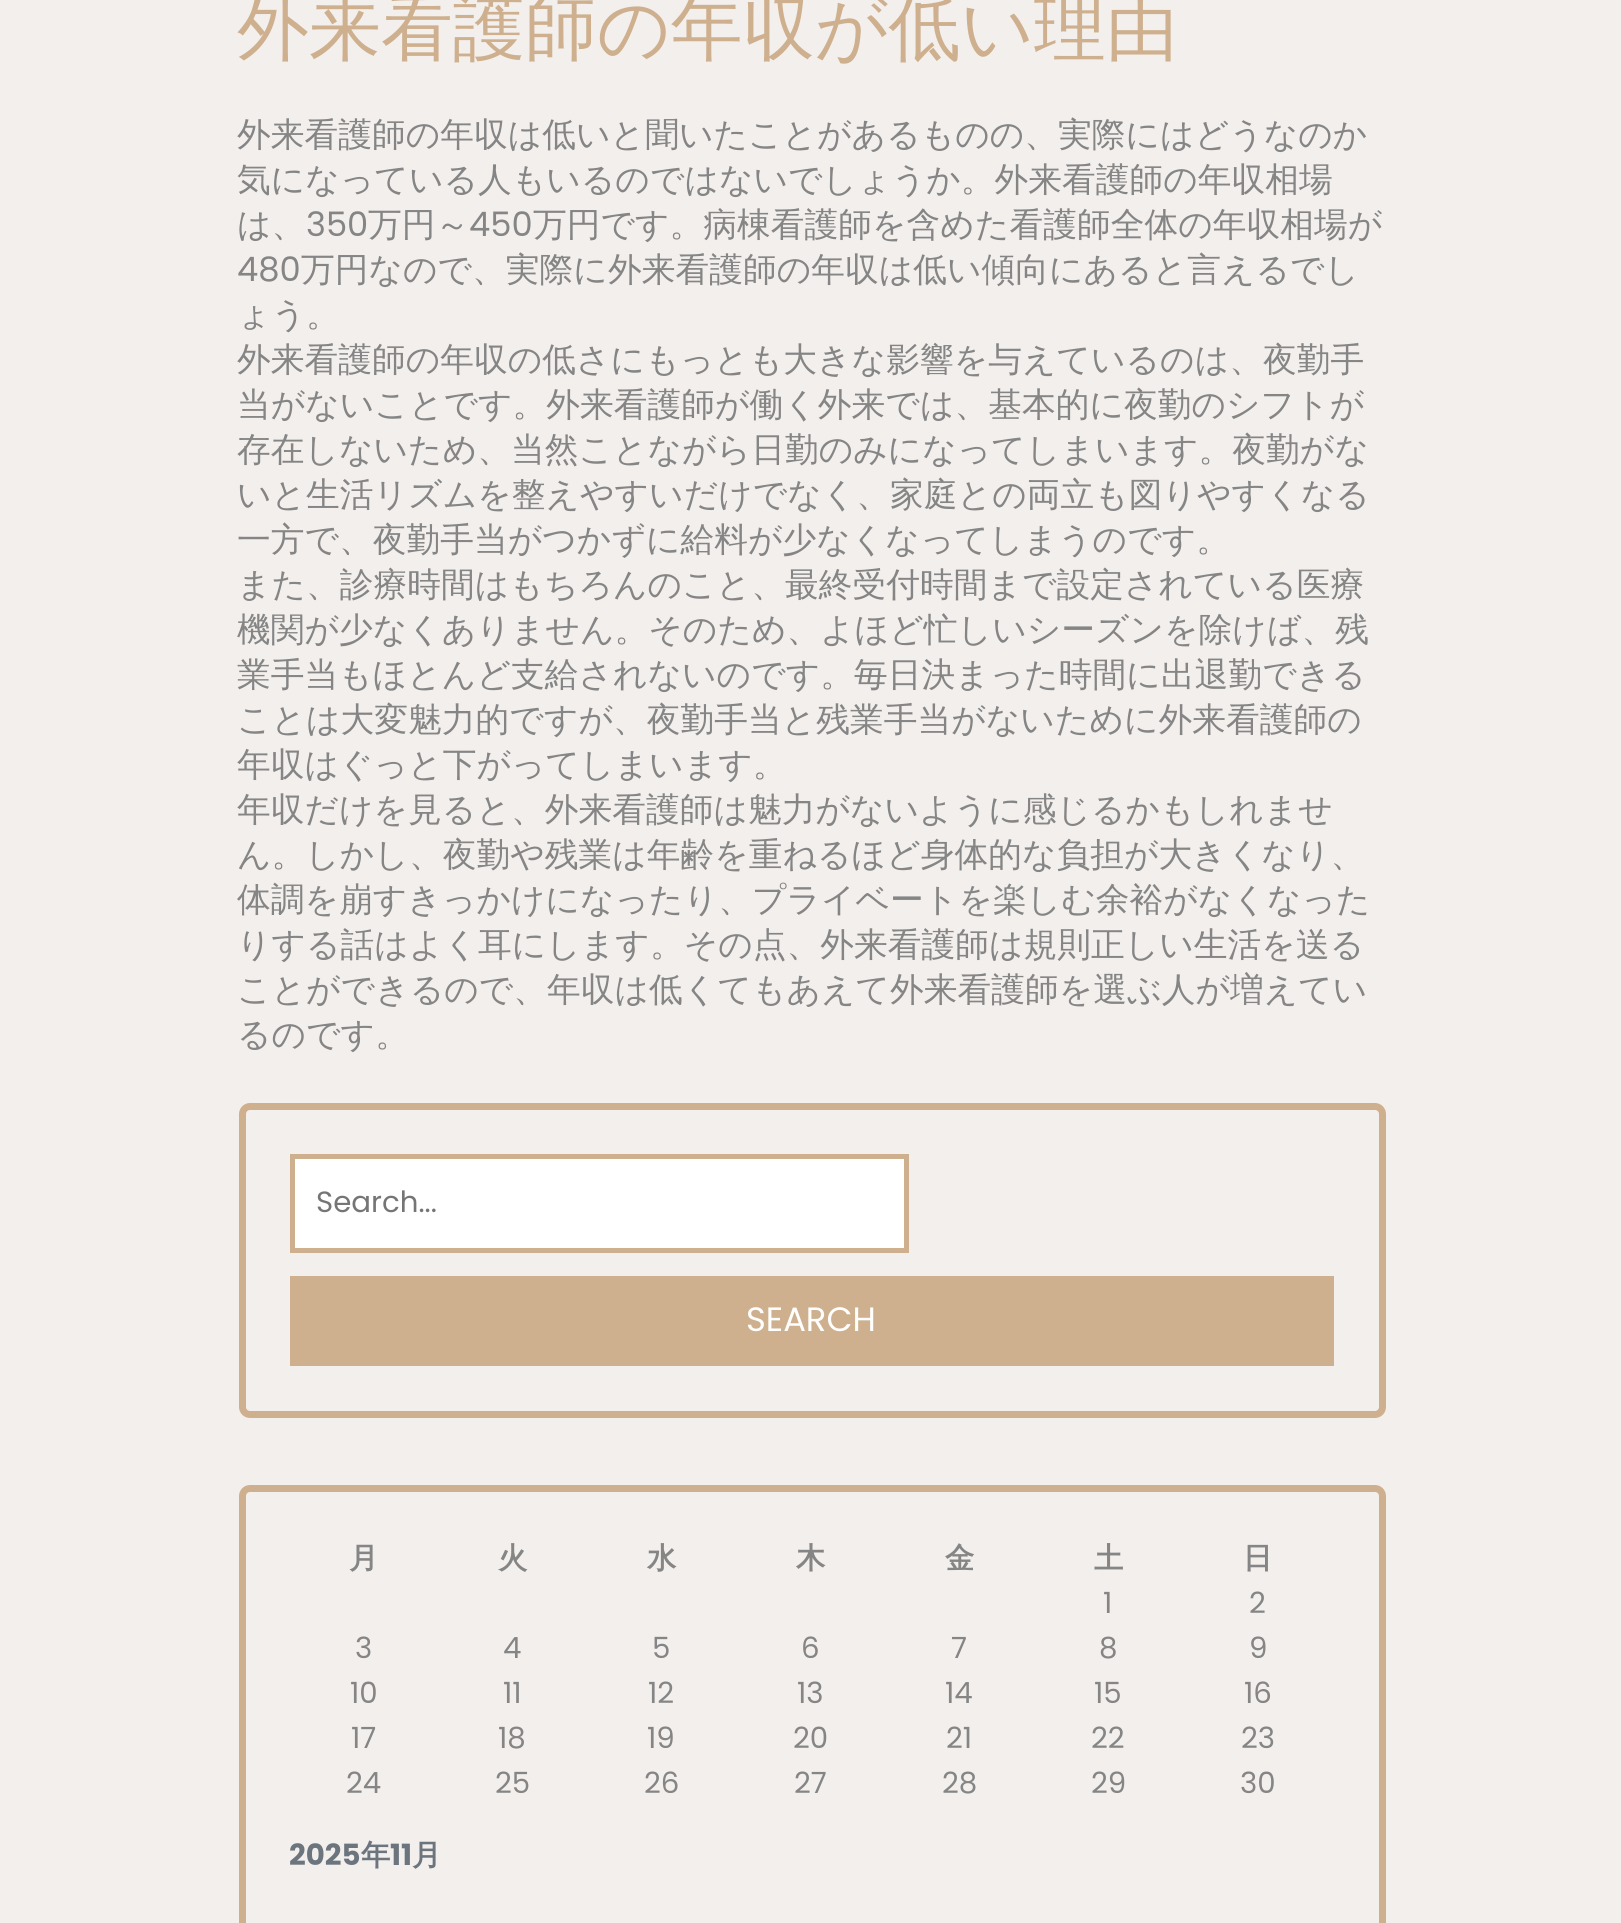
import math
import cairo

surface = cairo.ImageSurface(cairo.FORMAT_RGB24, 1621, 1923)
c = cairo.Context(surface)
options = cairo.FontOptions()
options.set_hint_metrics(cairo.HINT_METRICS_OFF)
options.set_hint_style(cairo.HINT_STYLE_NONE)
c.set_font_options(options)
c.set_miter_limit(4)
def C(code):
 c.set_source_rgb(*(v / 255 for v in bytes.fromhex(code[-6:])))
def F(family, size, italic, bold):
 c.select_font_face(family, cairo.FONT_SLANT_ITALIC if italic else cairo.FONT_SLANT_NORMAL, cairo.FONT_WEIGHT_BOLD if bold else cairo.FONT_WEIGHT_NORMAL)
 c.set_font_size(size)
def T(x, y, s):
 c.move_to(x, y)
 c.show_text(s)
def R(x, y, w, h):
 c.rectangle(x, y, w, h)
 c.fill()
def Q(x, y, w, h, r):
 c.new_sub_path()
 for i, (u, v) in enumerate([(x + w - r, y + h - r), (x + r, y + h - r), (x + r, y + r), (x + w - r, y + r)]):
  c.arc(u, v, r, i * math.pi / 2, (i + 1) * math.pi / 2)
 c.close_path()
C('f3efed')
c.paint()
F('WenQuanYi Zen Hei Medium',72,0,0)
C('ceb08e')
T(237,53,'外来看護師の年収が低い理由')
F('WenQuanYi Zen Hei Medium',33.75,0,0)
C('858585')
T(237,146,'外来看護師の年収は低いと聞いたことがあるものの、実際にはどうなのか')
T(237,191,'気になっている人もいるのではないでしょうか。外来看護師の年収相場')
T(237,236,'は、')
F('Poppins',33.75,0,0)
T(306,236,'350')
F('WenQuanYi Zen Hei Medium',33.75,0,0)
T(368,236,'万円～')
F('Poppins',33.75,0,0)
T(469,236,'450')
F('WenQuanYi Zen Hei Medium',33.75,0,0)
T(533,236,'万円です。病棟看護師を含めた看護師全体の年収相場が')
F('Poppins',33.75,0,0)
T(237,281,'480')
F('WenQuanYi Zen Hei Medium',33.75,0,0)
T(301,281,'万円なので、実際に外来看護師の年収は低い傾向にあると言えるでし')
T(237,326,'ょう。')
T(237,371,'外来看護師の年収の低さにもっとも大きな影響を与えているのは、夜勤手')
T(237,416,'当がないことです。外来看護師が働く外来では、基本的に夜勤のシフトが')
T(237,461,'存在しないため、当然ことながら日勤のみになってしまいます。夜勤がな')
T(237,506,'いと生活リズムを整えやすいだけでなく、家庭との両立も図りやすくなる')
T(237,551,'一方で、夜勤手当がつかずに給料が少なくなってしまうのです。')
T(237,596,'また、診療時間はもちろんのこと、最終受付時間まで設定されている医療')
T(237,641,'機関が少なくありません。そのため、よほど忙しいシーズンを除けば、残')
T(237,686,'業手当もほとんど支給されないのです。毎日決まった時間に出退勤できる')
T(237,731,'ことは大変魅力的ですが、夜勤手当と残業手当がないために外来看護師の')
T(237,776,'年収はぐっと下がってしまいます。')
T(237,821,'年収だけを見ると、外来看護師は魅力がないように感じるかもしれませ')
T(237,866,'ん。しかし、夜勤や残業は年齢を重ねるほど身体的な負担が大きくなり、')
T(237,911,'体調を崩すきっかけになったり、プライベートを楽しむ余裕がなくなった')
T(237,956,'りする話はよく耳にします。その点、外来看護師は規則正しい生活を送る')
T(237,1001,'ことができるので、年収は低くてもあえて外来看護師を選ぶ人が増えてい')
T(237,1046,'るのです。')
Q(242.5,1106.5,1140,308,7.5)
C('ceb08e')
c.set_line_width(7)
c.stroke()
C('ffffff')
c.rectangle(292.5,1156.5,614,94)
c.fill_preserve()
C('ceb08e')
c.set_line_width(5)
c.stroke()
F('Poppins',29.25,0,0)
C('757575')
T(316,1212,'Search...')
C('ceb08e')
R(290,1276,1044,90)
F('Poppins',33.75,0,0)
C('ffffff')
T(746,1331,'SEARCH')
Q(242.5,1488.5,1140,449,7.5)
C('ceb08e')
c.set_line_width(7)
c.stroke()
F('WenQuanYi Zen Hei',29.25,0,1)
C('858585')
T(349,1568,'月')
T(498,1568,'火')
T(647,1568,'水')
T(796,1568,'木')
T(945,1568,'金')
T(1094,1568,'土')
T(1243,1568,'日')
F('Poppins',29.25,0,0)
T(1103,1613,'1')
T(1249,1613,'2')
T(355,1658,'3')
T(503,1658,'4')
T(652,1658,'5')
T(801,1658,'6')
T(951,1658,'7')
T(1099,1658,'8')
T(1249,1658,'9')
T(350,1703,'10')
T(503,1703,'11')
T(648,1703,'12')
T(797,1703,'13')
T(945,1703,'14')
T(1094,1703,'15')
T(1244,1703,'16')
T(351,1748,'17')
T(498,1748,'18')
T(647,1748,'19')
T(793,1748,'20')
T(946,1748,'21')
T(1091,1748,'22')
T(1241,1748,'23')
T(346,1793,'24')
T(495,1793,'25')
T(644,1793,'26')
T(794,1793,'27')
T(942,1793,'28')
T(1091,1793,'29')
T(1240,1793,'30')
F('Poppins',29.25,0,1)
C('6c757d')
T(289,1865,'2025')
F('WenQuanYi Zen Hei',29.25,0,1)
T(361,1865,'年')
F('Poppins',29.25,0,1)
T(390,1865,'11')
F('WenQuanYi Zen Hei',29.25,0,1)
T(412,1865,'月')
surface.write_to_png('o.png')
